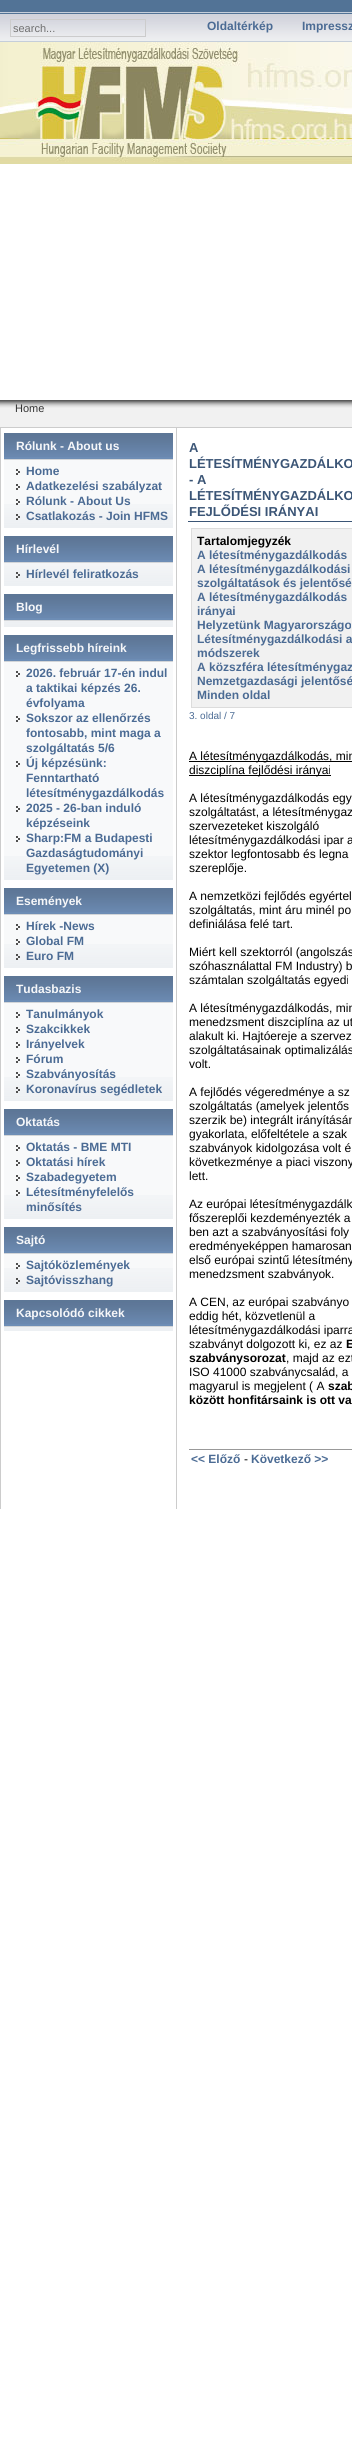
import math
import cairo

surface = cairo.ImageSurface(cairo.FORMAT_RGB24, 352, 2464)
c = cairo.Context(surface)
options = cairo.FontOptions()
options.set_hint_metrics(cairo.HINT_METRICS_OFF)
options.set_hint_style(cairo.HINT_STYLE_NONE)
c.set_font_options(options)
c.set_miter_limit(4)
def C(code):
 c.set_source_rgb(*(v / 255 for v in bytes.fromhex(code[-6:])))
def F(family, size, italic, bold):
 c.select_font_face(family, cairo.FONT_SLANT_ITALIC if italic else cairo.FONT_SLANT_NORMAL, cairo.FONT_WEIGHT_BOLD if bold else cairo.FONT_WEIGHT_NORMAL)
 c.set_font_size(size)
def T(x, y, s):
 c.move_to(x, y)
 c.show_text(s)
def R(x, y, w, h):
 c.rectangle(x, y, w, h)
 c.fill()
def I(path, x, y, w, h):
 c.save()
 c.set_source_surface(cairo.ImageSurface.create_from_png(path), x, y)
 c.rectangle(x, y, w, h)
 c.fill()
 c.restore()
C('ffffff')
c.paint()
I('1.png',0,0,352,42)
c.rectangle(10.5,19.5,135,17)
C('cccccc')
c.set_line_width(1)
c.stroke()
F('Liberation Sans',11,0,0)
C('707070')
T(13,32,'search...')
F('Liberation Sans',12,0,1)
C('4b6b94')
T(207,30,'Oldaltérkép')
T(302,30,'Impressz')
I('2.png',0,42,352,122)
I('3.png',0,400,352,28)
F('Liberation Sans',11,0,0)
C('333333')
T(15,412,'Home')
C('cccccc')
R(0,428,1,1081)
C('f8f9fa')
R(4,460,169,44)
I('4.png',4,504,169,24)
C('6d8db5')
R(4,457,169,2)
I('5.png',4,433,169,24)
C('d2d5d8')
R(4,459,169,1)
F('Liberation Sans',12,0,1)
C('f6f7f9')
T(16,450,'Rólunk - About us')
I('6.png',16,469,4,6)
C('4b6b94')
T(26,475,'Home')
I('6.png',16,484,4,6)
T(26,490,'Adatkezelési szabályzat')
I('7.png',16,499,4,6)
T(26,505,'Rólunk - About Us')
I('8.png',16,514,4,6)
T(26,520,'Csatlakozás - Join HFMS')
I('9.png',4,563,169,23)
C('6d8db5')
R(4,560,169,2)
I('5.png',4,536,169,24)
C('d2d5d8')
R(4,562,169,1)
C('f6f7f9')
T(16,553,'Hírlevél')
I('8.png',16,572,4,6)
C('4b6b94')
T(26,578,'Hírlevél feliratkozás')
I('10.png',4,621,169,6)
C('6d8db5')
R(4,618,169,2)
I('5.png',4,594,169,24)
C('d2d5d8')
R(4,620,169,1)
C('f6f7f9')
T(16,611,'Blog')
C('f8f9fa')
R(4,662,169,194)
I('4.png',4,856,169,24)
C('6d8db5')
R(4,659,169,2)
I('5.png',4,635,169,24)
C('d2d5d8')
R(4,661,169,1)
C('f6f7f9')
T(16,652,'Legfrissebb híreink')
I('6.png',16,671,4,6)
C('4b6b94')
T(26,677,'2026. február 17-én indul')
T(26,692,'a taktikai képzés 26.')
T(26,707,'évfolyama')
I('6.png',16,716,4,6)
T(26,722,'Sokszor az ellenőrzés')
T(26,737,'fontosabb, mint maga a')
T(26,752,'szolgáltatás 5/6')
I('6.png',16,761,4,6)
T(26,767,'Új képzésünk:')
T(26,782,'Fenntartható')
T(26,797,'létesítménygazdálkodás')
I('6.png',16,806,4,6)
T(26,812,'2025 - 26-ban induló')
T(26,827,'képzéseink')
I('6.png',16,836,4,6)
T(26,842,'Sharp:FM a Budapesti')
T(26,857,'Gazdaságtudományi')
T(26,872,'Egyetemen (X)')
C('f8f9fa')
R(4,915,169,29)
I('4.png',4,944,169,24)
C('6d8db5')
R(4,912,169,2)
I('5.png',4,888,169,24)
C('d2d5d8')
R(4,914,169,1)
C('f6f7f9')
T(16,905,'Események')
I('6.png',16,924,4,6)
C('4b6b94')
T(26,930,'Hírek -News')
I('7.png',16,939,4,6)
T(26,945,'Global FM')
I('8.png',16,954,4,6)
T(26,960,'Euro FM')
C('f8f9fa')
R(4,1003,169,74)
I('4.png',4,1077,169,24)
C('6d8db5')
R(4,1000,169,2)
I('5.png',4,976,169,24)
C('d2d5d8')
R(4,1002,169,1)
C('f6f7f9')
T(16,993,'Tudasbazis')
I('6.png',16,1012,4,6)
C('4b6b94')
T(26,1018,'Tanulmányok')
I('6.png',16,1027,4,6)
T(26,1033,'Szakcikkek')
I('6.png',16,1042,4,6)
T(26,1048,'Irányelvek')
I('6.png',16,1057,4,6)
T(26,1063,'Fórum')
I('7.png',16,1072,4,6)
T(26,1078,'Szabványosítás')
I('8.png',16,1087,4,6)
T(26,1093,'Koronavírus segédletek')
C('f8f9fa')
R(4,1136,169,59)
I('4.png',4,1195,169,24)
C('6d8db5')
R(4,1133,169,2)
I('5.png',4,1109,169,24)
C('d2d5d8')
R(4,1135,169,1)
C('f6f7f9')
T(16,1126,'Oktatás')
I('6.png',16,1145,4,6)
C('4b6b94')
T(26,1151,'Oktatás - BME MTI')
I('6.png',16,1160,4,6)
T(26,1166,'Oktatási hírek')
I('6.png',16,1175,4,6)
T(26,1181,'Szabadegyetem')
I('7.png',16,1190,4,6)
T(26,1196,'Létesítményfelelős')
T(26,1211,'minősítés')
C('f8f9fa')
R(4,1254,169,14)
I('4.png',4,1268,169,24)
C('6d8db5')
R(4,1251,169,2)
I('5.png',4,1227,169,24)
C('d2d5d8')
R(4,1253,169,1)
C('f6f7f9')
T(16,1244,'Sajtó')
I('7.png',16,1263,4,6)
C('4b6b94')
T(26,1269,'Sajtóközlemények')
I('8.png',16,1278,4,6)
T(26,1284,'Sajtóvisszhang')
I('11.png',4,1327,169,4)
C('6d8db5')
R(4,1324,169,2)
I('5.png',4,1300,169,24)
C('d2d5d8')
R(4,1326,169,1)
C('f6f7f9')
T(16,1317,'Kapcsolódó cikkek')
C('cccccc')
R(176,428,1,1081)
C('3b5576')
R(188,521,164,1)
F('Liberation Sans',13,0,1)
T(189,452,'A')
T(189,468,'LÉTESÍTMÉNYGAZDÁLKO')
T(189,484,'- A')
T(189,500,'LÉTESÍTMÉNYGAZDÁLKO')
T(189,516,'FEJLŐDÉSI IRÁNYAI')
C('f1f1f1')
c.rectangle(191.5,528.5,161,179)
c.fill_preserve()
C('dcdcdc')
c.stroke()
F('Liberation Sans',12,0,1)
C('000000')
T(197,545,'Tartalomjegyzék')
C('4b6b94')
T(197,559,'A létesítménygazdálkodás')
T(197,573,'A létesítménygazdálkodási')
T(197,587,'szolgáltatások és jelentősé')
T(197,601,'A létesítménygazdálkodás')
T(197,615,'irányai')
T(197,629,'Helyzetünk Magyarországo')
T(197,643,'Létesítménygazdálkodási a')
T(197,657,'módszerek')
T(197,671,'A közszféra létesítménygaz')
T(197,685,'Nemzetgazdasági jelentősé')
T(197,699,'Minden oldal')
F('Liberation Sans',10,0,0)
T(189,719,'3. oldal / 7')
C('000000')
R(189,761,163,1)
F('Liberation Sans',12,0,0)
T(189,760,'A létesítménygazdálkodás, min')
R(189,775,142,1)
T(189,774,'diszciplína fejlődési irányai')
T(189,802,'A létesítménygazdálkodás egy')
T(189,816,'szolgáltatást, a létesítménygaz')
T(189,830,'szervezeteket kiszolgáló')
T(189,844,'létesítménygazdálkodási ipar a')
T(189,858,'szektor legfontosabb és legna')
T(189,872,'szereplője.')
T(189,900,'A nemzetközi fejlődés egyértel')
T(189,914,'szolgáltatás, mint áru minél po')
T(189,928,'definiálása felé tart.')
T(189,956,'Miért kell szektorról (angolszás')
T(189,970,'szóhasználattal FM Industry) b')
T(189,984,'számtalan szolgáltatás egyedi')
T(189,1012,'A létesítménygazdálkodás, min')
T(189,1026,'menedzsment diszciplína az ut')
T(189,1040,'alakult ki. Hajtóereje a szervez')
T(189,1054,'szolgáltatásainak optimalizálás')
T(189,1068,'volt.')
T(189,1096,'A fejlődés végeredménye a sz')
T(189,1110,'szolgáltatás (amelyek jelentős')
T(189,1124,'szerzik be) integrált irányításán')
T(189,1138,'gyakorlata, előfeltétele a szak')
T(189,1152,'szabványok kidolgozása volt é')
T(189,1166,'következménye a piaci viszony')
T(189,1180,'lett.')
T(189,1208,'Az európai létesítménygazdálk')
T(189,1222,'főszereplői kezdeményezték a')
T(189,1236,'ben azt a szabványosítási foly')
T(189,1250,'eredményeképpen hamarosan')
T(189,1264,'első európai szintű létesítmény')
T(189,1278,'menedzsment szabványok.')
T(189,1306,'A CEN, az európai szabványo')
T(189,1320,'eddig hét, közvetlenül a')
T(189,1334,'létesítménygazdálkodási iparra')
T(189,1348,'szabványt dolgozott ki, ez az')
F('Liberation Sans',12,0,1)
T(346,1348,'E')
T(189,1362,'szabványsorozat')
F('Liberation Sans',12,0,0)
T(286,1362,', majd az ezt')
T(189,1376,'ISO 41000 szabványcsalád, a')
T(189,1390,'magyarul is megjelent ( A')
F('Liberation Sans',12,0,1)
T(328,1390,'szab')
T(189,1404,'között honfitársaink is ott va')
C('999999')
R(189,1449,163,1)
C('4b6b94')
T(191,1463,'<< Előző')
F('Liberation Sans',12,0,0)
C('000000')
T(244,1463,'-')
F('Liberation Sans',12,0,1)
C('4b6b94')
T(251,1463,'Következő >>')
surface.write_to_png('o.png')
